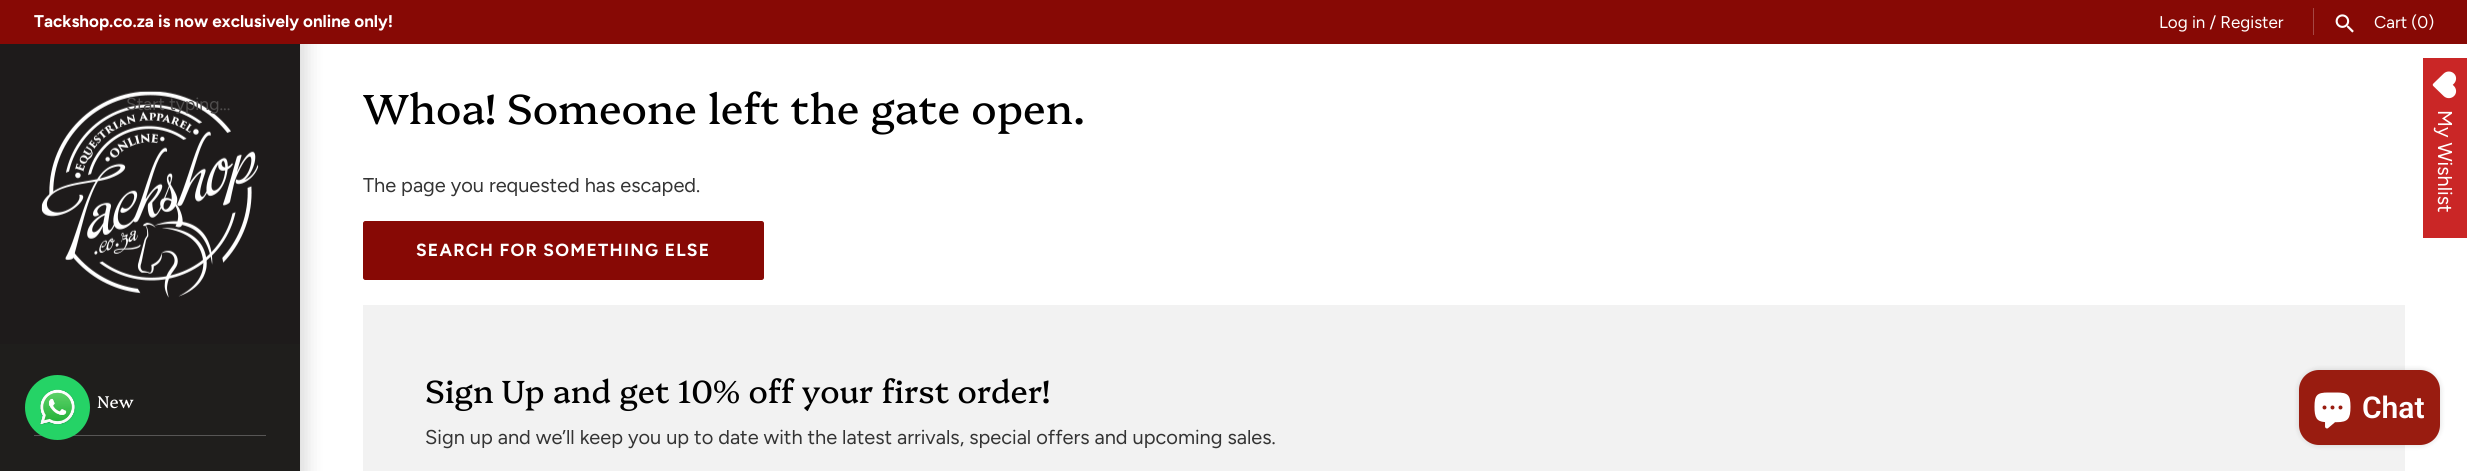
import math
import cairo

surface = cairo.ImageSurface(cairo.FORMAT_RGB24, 2467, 471)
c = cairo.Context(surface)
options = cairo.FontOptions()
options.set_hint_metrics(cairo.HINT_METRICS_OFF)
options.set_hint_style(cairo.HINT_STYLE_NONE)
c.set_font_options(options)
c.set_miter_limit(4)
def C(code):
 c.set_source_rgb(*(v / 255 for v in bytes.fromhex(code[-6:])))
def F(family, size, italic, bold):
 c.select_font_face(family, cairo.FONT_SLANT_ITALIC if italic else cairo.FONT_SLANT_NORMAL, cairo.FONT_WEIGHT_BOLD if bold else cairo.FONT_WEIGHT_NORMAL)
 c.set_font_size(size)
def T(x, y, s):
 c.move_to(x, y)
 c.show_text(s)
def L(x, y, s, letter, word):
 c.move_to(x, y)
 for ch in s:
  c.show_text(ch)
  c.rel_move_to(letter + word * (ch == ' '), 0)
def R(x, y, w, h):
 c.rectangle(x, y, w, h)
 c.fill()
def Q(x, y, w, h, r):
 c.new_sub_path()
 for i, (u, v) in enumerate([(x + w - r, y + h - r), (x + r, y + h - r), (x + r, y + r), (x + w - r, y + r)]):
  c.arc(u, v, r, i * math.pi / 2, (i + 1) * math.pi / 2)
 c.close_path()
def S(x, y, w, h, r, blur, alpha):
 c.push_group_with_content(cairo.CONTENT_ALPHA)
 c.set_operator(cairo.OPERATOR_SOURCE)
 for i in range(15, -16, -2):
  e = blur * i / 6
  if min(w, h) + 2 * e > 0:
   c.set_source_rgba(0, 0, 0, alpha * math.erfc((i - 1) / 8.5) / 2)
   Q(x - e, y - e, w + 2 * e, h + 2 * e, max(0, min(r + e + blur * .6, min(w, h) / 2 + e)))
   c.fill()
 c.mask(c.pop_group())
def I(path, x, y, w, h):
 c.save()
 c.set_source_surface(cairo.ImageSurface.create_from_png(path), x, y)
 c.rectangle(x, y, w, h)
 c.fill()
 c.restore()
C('ffffff')
c.paint()
C('000000')
S(-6,38,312,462,0,9.5,.15)
C('870905')
R(0,0,2467,44)
F('Figtree',17,0,1)
C('ffffff')
T(34,27,'Tackshop.co.za is now exclusively online only!')
F('Figtree',17,0,0)
T(2159,28,'Log in / Register')
C('a54744')
R(2313,8,1,27)
I('1.png',2335,14,19,19)
C('ffffff')
T(2374,28,'Cart (0)')
C('1e1b1b')
R(0,44,300,300)
I('2.png',41,90,218,208)
F('Figtree',17.5,0,0)
C('4f4d4d')
T(126,110,'Start typing...')
C('1f1e1c')
R(0,344,300,127)
C('575655')
R(34,435,232,1)
F('Platypi',17,0,0)
C('ffffff')
T(97,408,'New')
F('Platypi',42,0,0)
C('000000')
T(363,124,'Whoa! Someone left the gate open.')
F('Figtree',20,0,0)
C('343434')
T(363,192,'The page you requested has escaped.')
C('870905')
Q(363.5,221.5,400,58,2)
c.fill_preserve()
c.set_line_width(1)
c.stroke()
F('Figtree',17.5,0,1)
C('ffffff')
L(416,256,'SEARCH FOR SOMETHING ELSE',1.25,0)
C('f2f2f2')
R(363,305,2042,166)
F('Platypi',32,0,0)
C('000000')
L(425,403,'Sign Up and get 10% off your first order!',0,-.25)
F('Figtree',20,0,0)
C('343434')
T(425,444,'Sign up and we’ll keep you up to date with the latest arrivals, special offers and upcoming sales.')
C('ca2626')
R(2423,58,44,180)
I('3.png',2432,71,25,28)
C('ffffff')
c.save()
c.translate(2438,110)
c.rotate(90 * math.pi / 180)
T(0,0,'My Wishlist')
c.restore()
C('25d366')
c.new_path()
c.arc(57.5,407.5,32.5,0,2 * math.pi)
c.fill()
I('4.png',40,389,36,36)
C('000000')
S(2299,370,141,75,20,3,.15)
C('991c10')
Q(2299,370,141,75,20)
c.fill()
I('5.png',2314,392,37,37)
F('Roboto SemiBold',30,0,0)
C('ffffff')
T(2362,418,'Chat')
surface.write_to_png('o.png')
